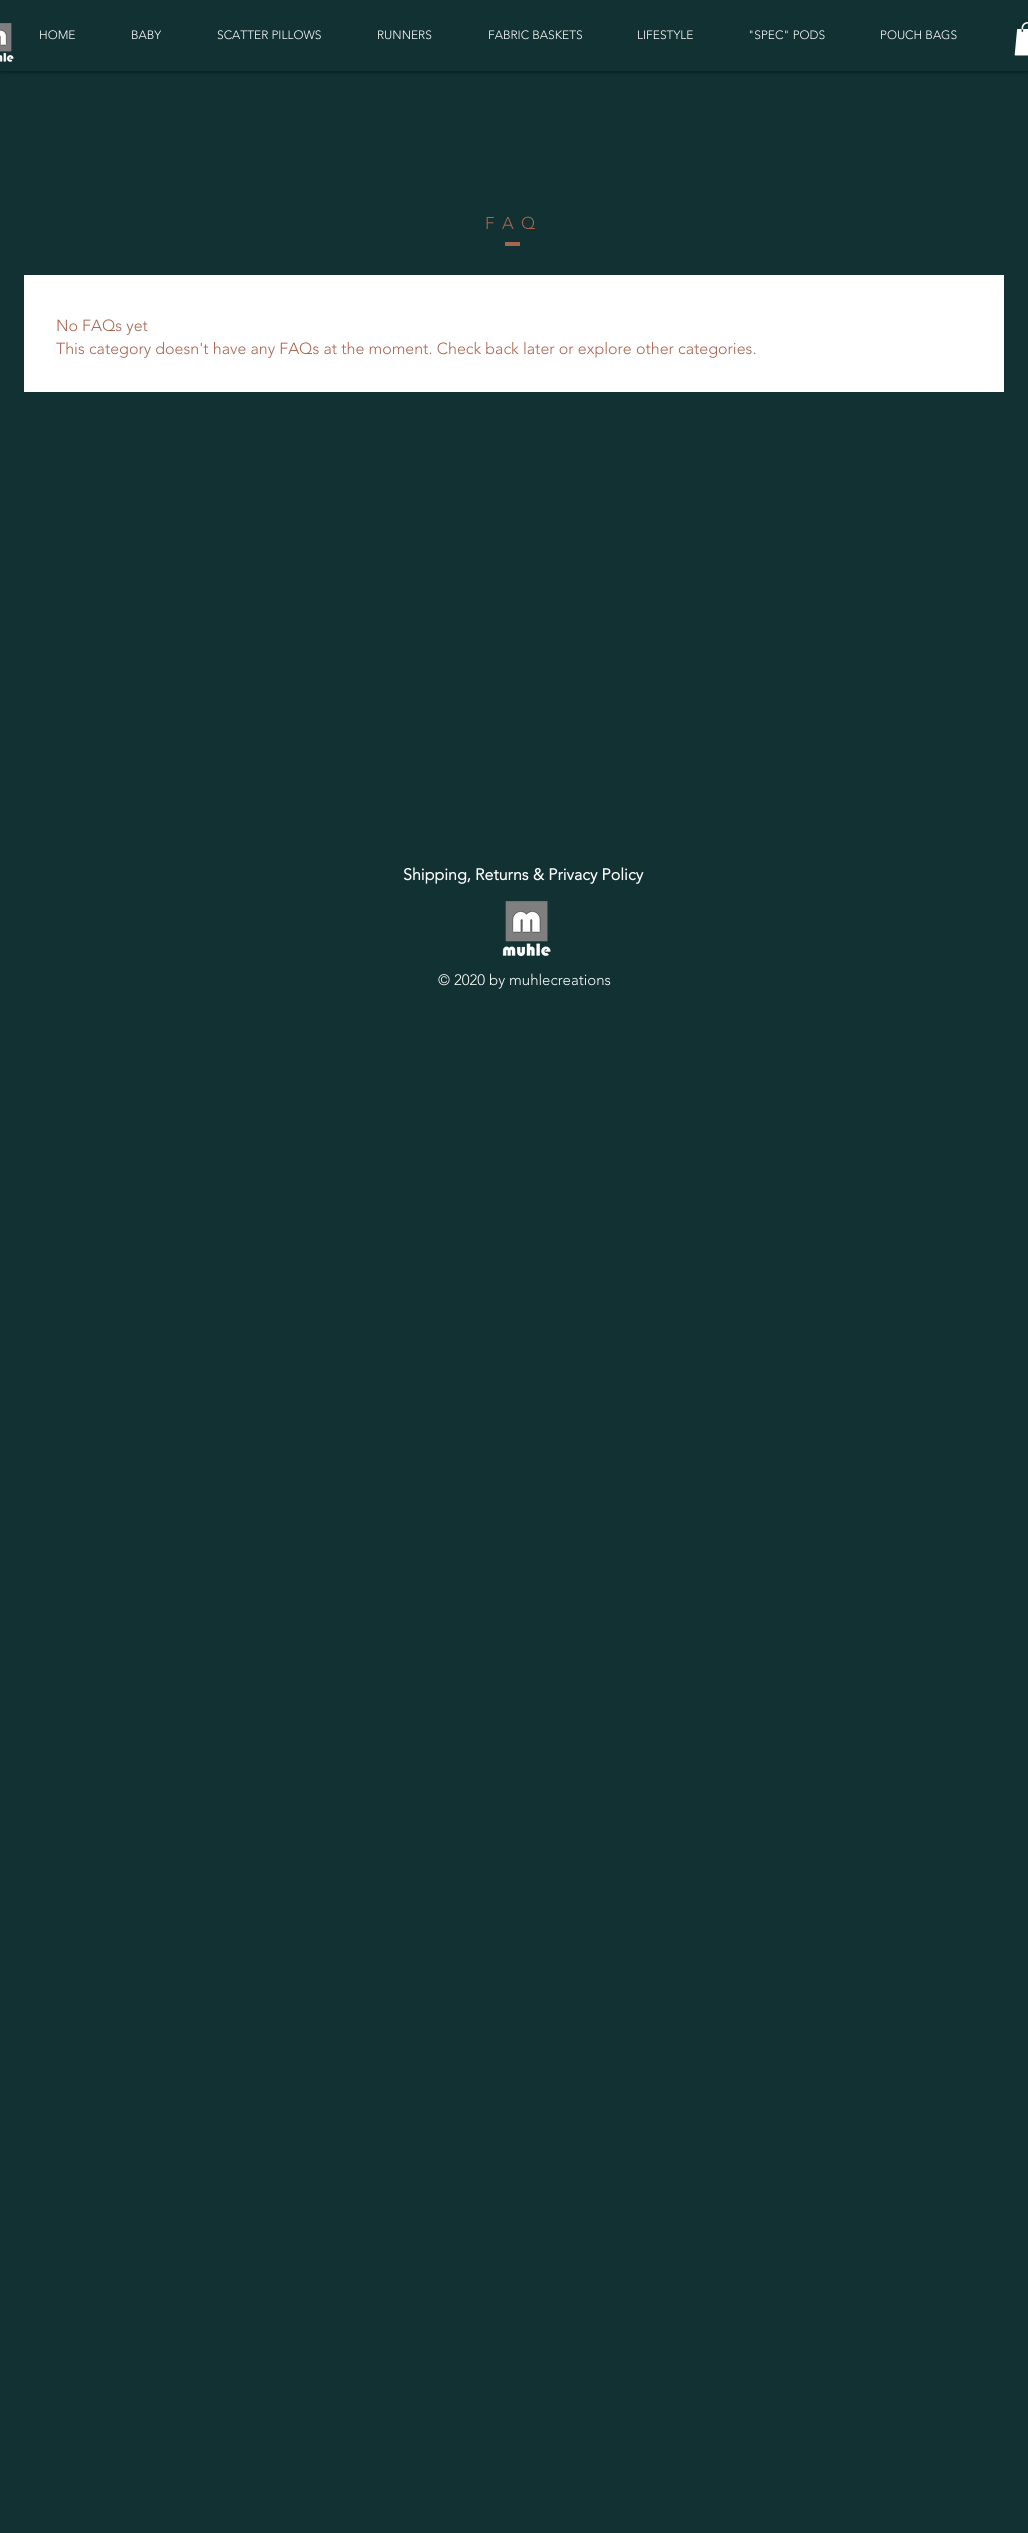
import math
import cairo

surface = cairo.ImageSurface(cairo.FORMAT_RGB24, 1028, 2533)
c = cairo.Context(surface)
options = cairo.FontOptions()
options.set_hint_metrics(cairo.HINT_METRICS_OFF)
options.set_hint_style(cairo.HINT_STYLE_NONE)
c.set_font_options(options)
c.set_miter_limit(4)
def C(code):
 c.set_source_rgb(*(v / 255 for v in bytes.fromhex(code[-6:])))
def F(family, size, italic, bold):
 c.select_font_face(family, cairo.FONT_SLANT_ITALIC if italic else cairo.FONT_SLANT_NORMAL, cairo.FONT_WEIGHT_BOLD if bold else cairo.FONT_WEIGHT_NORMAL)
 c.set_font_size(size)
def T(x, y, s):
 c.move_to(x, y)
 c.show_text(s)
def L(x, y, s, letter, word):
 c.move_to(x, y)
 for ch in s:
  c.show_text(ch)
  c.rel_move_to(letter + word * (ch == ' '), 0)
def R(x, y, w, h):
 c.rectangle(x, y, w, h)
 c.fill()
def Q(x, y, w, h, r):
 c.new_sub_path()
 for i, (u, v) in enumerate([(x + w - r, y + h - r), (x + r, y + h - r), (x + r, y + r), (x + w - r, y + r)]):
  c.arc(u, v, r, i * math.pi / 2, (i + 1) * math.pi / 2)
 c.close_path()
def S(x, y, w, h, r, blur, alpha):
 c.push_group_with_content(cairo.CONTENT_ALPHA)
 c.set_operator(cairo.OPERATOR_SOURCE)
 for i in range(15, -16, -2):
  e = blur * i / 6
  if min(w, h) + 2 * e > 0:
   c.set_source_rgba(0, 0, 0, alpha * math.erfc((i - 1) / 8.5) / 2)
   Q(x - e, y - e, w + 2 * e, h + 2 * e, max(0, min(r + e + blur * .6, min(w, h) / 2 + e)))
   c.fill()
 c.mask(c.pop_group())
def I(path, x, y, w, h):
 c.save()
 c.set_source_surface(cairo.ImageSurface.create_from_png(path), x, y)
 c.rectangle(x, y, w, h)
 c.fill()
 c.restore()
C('123132')
c.paint()
C('000000')
S(0,0,1028,71,0,2.5,.7)
C('123132')
R(0,0,1028,71)
I('1.png',0,23,14,39)
F('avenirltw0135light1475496 Light',12,0,0)
C('ffffff')
T(39,39,'HOME')
T(131,39,'BABY')
T(217,39,'SCATTER PILLOWS')
T(377,39,'RUNNERS')
T(488,39,'FABRIC BASKETS')
T(637,39,'LIFESTYLE')
T(748,39,'"SPEC" PODS')
T(880,39,'POUCH BAGS')
I('2.png',1014,22,14,34)
F('avenirltw0135light1475496 Light',17,0,0)
C('a86550')
L(485,229,'FAQ',7.5,0)
R(505,242,15,4)
C('ffffff')
R(24,275,980,117)
F('avenirltw0135light1475496 Light',16,0,0)
C('a86550')
T(56,331,'No FAQs yet')
T(56,354,'This category doesn\'t have any FAQs at the moment. Check back later or explore other categories.')
F('avenirltw0135light1475496',16,0,1)
C('ffffff')
T(403,880,'Shipping, Returns & Privacy Policy')
I('3.png',502,901,49,56)
F('avenirltw0135light1475496 Light',15,0,0)
T(438,985,'© 2020 by muhlecreations')
surface.write_to_png('o.png')
